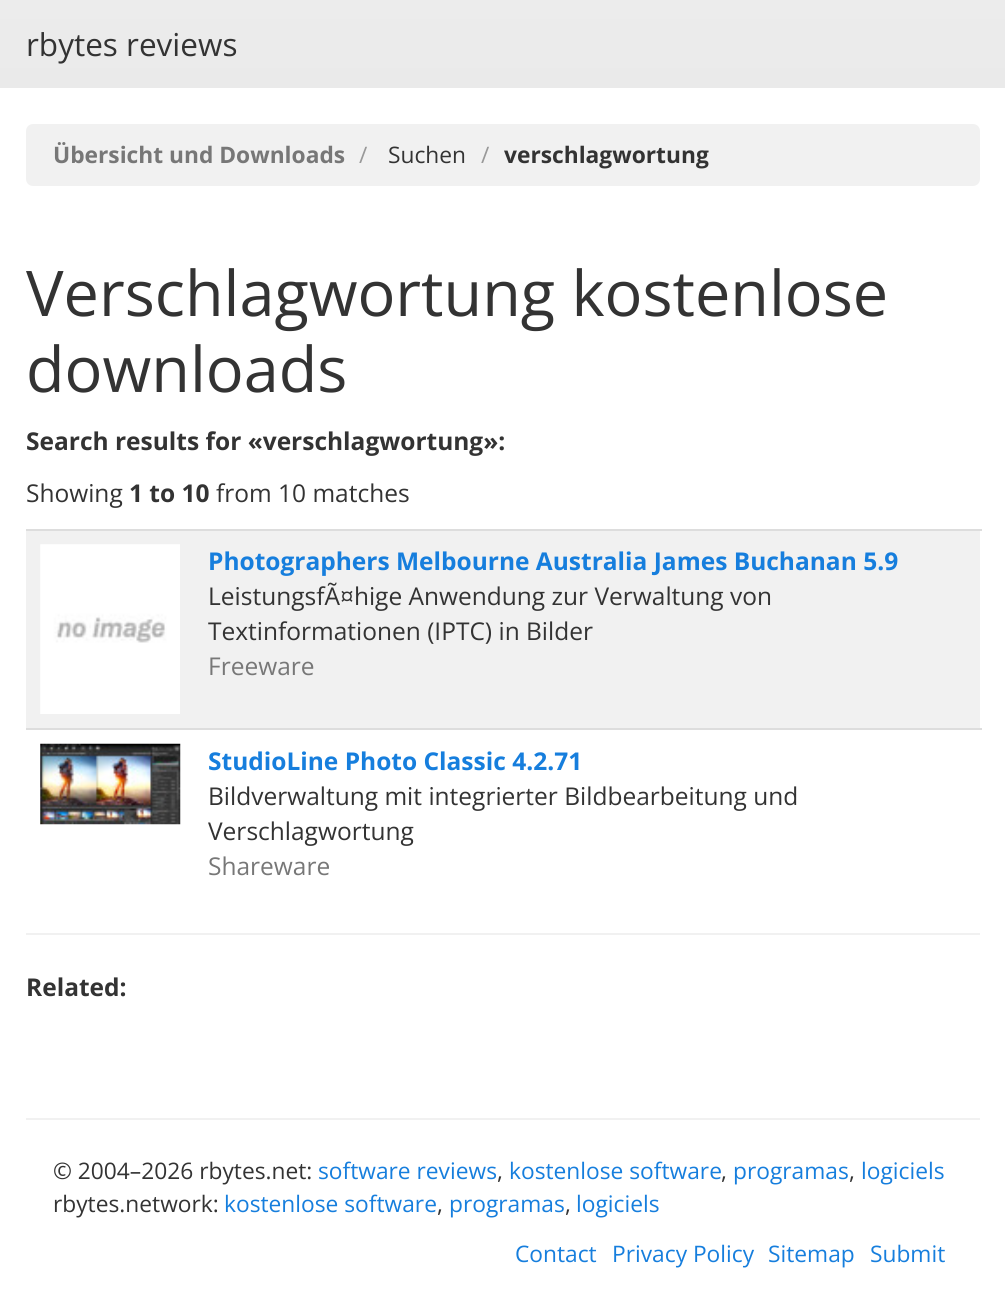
import math
import cairo

surface = cairo.ImageSurface(cairo.FORMAT_RGB24, 1005, 1298)
c = cairo.Context(surface)
options = cairo.FontOptions()
options.set_hint_metrics(cairo.HINT_METRICS_OFF)
options.set_hint_style(cairo.HINT_STYLE_NONE)
c.set_font_options(options)
c.set_miter_limit(4)
def C(code):
 c.set_source_rgb(*(v / 255 for v in bytes.fromhex(code[-6:])))
def F(family, size, italic, bold):
 c.select_font_face(family, cairo.FONT_SLANT_ITALIC if italic else cairo.FONT_SLANT_NORMAL, cairo.FONT_WEIGHT_BOLD if bold else cairo.FONT_WEIGHT_NORMAL)
 c.set_font_size(size)
def T(x, y, s):
 c.move_to(x, y)
 c.show_text(s)
def R(x, y, w, h):
 c.rectangle(x, y, w, h)
 c.fill()
def Q(x, y, w, h, r):
 c.new_sub_path()
 for i, (u, v) in enumerate([(x + w - r, y + h - r), (x + r, y + h - r), (x + r, y + r), (x + w - r, y + r)]):
  c.arc(u, v, r, i * math.pi / 2, (i + 1) * math.pi / 2)
 c.close_path()
def I(path, x, y, w, h):
 c.save()
 c.set_source_surface(cairo.ImageSurface.create_from_png(path), x, y)
 c.rectangle(x, y, w, h)
 c.fill()
 c.restore()
C('ffffff')
c.paint()
gradient = cairo.LinearGradient(503,0,503,88)
gradient.add_color_stop_rgba(0,0.925,0.925,0.925,1)
gradient.add_color_stop_rgba(1,0.918,0.918,0.918,1)
c.set_source(gradient)
R(0,0,1005,88)
F('Open Sans',31.5,0,0)
C('333333')
T(26,56,'rbytes reviews')
C('f1f1f1')
Q(26,124,954,62,7)
c.fill()
F('Open Sans',22.75,0,1)
C('777777')
T(53,163,'Übersicht und Downloads')
F('Open Sans',22.75,0,0)
C('999999')
T(359,163,'/')
C('333333')
T(388,163,'Suchen')
C('999999')
T(481,163,'/')
F('Open Sans',22.75,0,1)
C('333333')
T(504,163,'verschlagwortung')
F('Open Sans',63,0,0)
T(26,316,'Verschlagwortung kostenlose')
T(26,392,'downloads')
F('Open Sans',24.5,0,1)
T(26,450,'Search results for «verschlagwortung»:')
F('Open Sans',24.5,0,0)
T(26,502,'Showing')
F('Open Sans',24.5,0,1)
T(129,502,'1 to 10')
F('Open Sans',24.5,0,0)
T(216,502,'from 10 matches')
C('f1f1f1')
R(26,531,954,197)
I('1.png',40,544,140,170)
C('dddddd')
R(26,529,956,2)
F('Open Sans',24.5,0,1)
C('167edd')
T(208,570,'Photographers Melbourne Australia James Buchanan 5.9')
F('Open Sans',24.5,0,0)
C('333333')
T(208,605,'LeistungsfÃ¤hige Anwendung zur Verwaltung von')
T(208,640,'Textinformationen (IPTC) in Bilder')
C('777777')
T(208,675,'Freeware')
I('2.png',40,743,141,82)
C('dddddd')
R(26,728,956,2)
F('Open Sans',24.5,0,1)
C('167edd')
T(208,770,'StudioLine Photo Classic 4.2.71')
F('Open Sans',24.5,0,0)
C('333333')
T(208,805,'Bildverwaltung mit integrierter Bildbearbeitung und')
T(208,840,'Verschlagwortung')
C('777777')
T(208,875,'Shareware')
C('f1f1f1')
R(26,933,954,2)
F('Open Sans',24.5,0,1)
C('333333')
T(26,996,'Related:')
C('f1f1f1')
R(26,1118,954,2)
F('Open Sans',22.75,0,0)
C('333333')
T(53,1179,'© 2004–2026 rbytes.net:')
C('167edd')
T(318,1179,'software reviews')
C('333333')
T(497,1179,',')
C('167edd')
T(509,1179,'kostenlose software')
C('333333')
T(721,1179,',')
C('167edd')
T(733,1179,'programas')
C('333333')
T(849,1179,',')
C('167edd')
T(861,1179,'logiciels')
C('333333')
T(53,1212,'rbytes.network:')
C('167edd')
T(224,1212,'kostenlose software')
C('333333')
T(437,1212,',')
C('167edd')
T(449,1212,'programas')
C('333333')
T(565,1212,',')
C('167edd')
T(576,1212,'logiciels')
T(515,1262,'Contact')
T(612,1262,'Privacy Policy')
T(768,1262,'Sitemap')
T(870,1262,'Submit')
surface.write_to_png('o.png')
